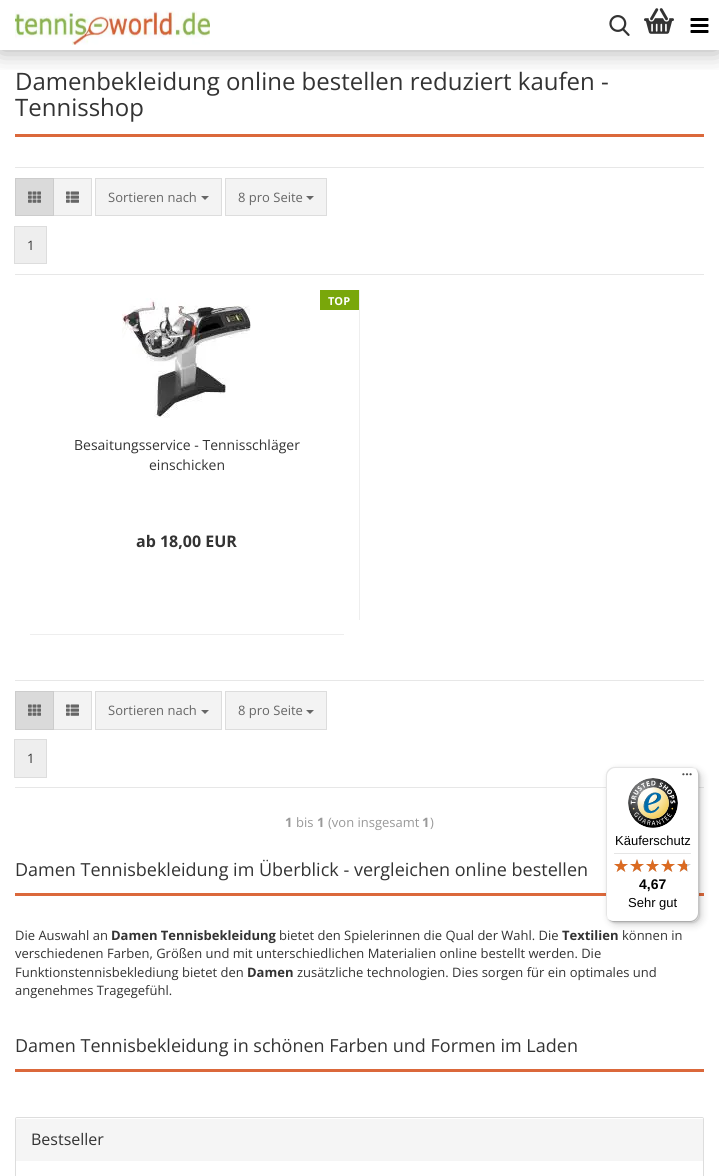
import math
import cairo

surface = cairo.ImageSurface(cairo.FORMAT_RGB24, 719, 1176)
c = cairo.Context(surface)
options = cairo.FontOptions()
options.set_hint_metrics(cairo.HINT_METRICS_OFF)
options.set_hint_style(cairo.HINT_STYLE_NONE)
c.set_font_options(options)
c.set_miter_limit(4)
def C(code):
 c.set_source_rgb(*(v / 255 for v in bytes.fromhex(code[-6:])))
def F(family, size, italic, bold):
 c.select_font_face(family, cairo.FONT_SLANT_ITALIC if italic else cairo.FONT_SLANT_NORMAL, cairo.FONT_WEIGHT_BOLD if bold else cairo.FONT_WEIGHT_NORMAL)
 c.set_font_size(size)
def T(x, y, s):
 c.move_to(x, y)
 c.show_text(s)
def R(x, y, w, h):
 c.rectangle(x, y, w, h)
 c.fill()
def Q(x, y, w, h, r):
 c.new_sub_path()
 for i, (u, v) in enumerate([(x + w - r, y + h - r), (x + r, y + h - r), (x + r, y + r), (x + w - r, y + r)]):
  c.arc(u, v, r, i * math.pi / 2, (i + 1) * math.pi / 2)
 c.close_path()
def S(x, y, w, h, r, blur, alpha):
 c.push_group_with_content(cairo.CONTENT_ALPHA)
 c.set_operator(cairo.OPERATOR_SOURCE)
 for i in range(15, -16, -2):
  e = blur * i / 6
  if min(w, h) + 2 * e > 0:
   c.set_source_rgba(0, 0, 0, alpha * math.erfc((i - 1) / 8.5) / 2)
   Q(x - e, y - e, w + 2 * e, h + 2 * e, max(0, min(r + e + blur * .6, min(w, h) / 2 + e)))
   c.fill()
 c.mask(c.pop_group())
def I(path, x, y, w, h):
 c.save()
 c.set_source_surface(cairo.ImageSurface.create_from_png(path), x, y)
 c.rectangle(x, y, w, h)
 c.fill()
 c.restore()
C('ffffff')
c.paint()
c.save()
c.rectangle(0,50,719,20)
c.clip()
C('000000')
S(0,0,719,50,0,12.5,.35)
c.restore()
I('1.png',15,10,195,35)
I('2.png',609,15,21,21)
I('3.png',644,8,30,26)
I('4.png',690,18,19,15)
C('db683b')
R(15,134,689,3)
F('Open Sans',24,0,0)
C('333333')
T(15,90,'Damenbekleidung online bestellen reduziert kaufen -')
T(15,116,'Tennisshop')
C('e7e7e7')
R(15,167,689,1)
R(15,274,689,1)
C('f3f3f3')
c.rectangle(53.5,178.5,38,37)
c.fill_preserve()
C('dddddd')
c.set_line_width(1)
c.stroke()
C('dadada')
c.rectangle(15.5,178.5,38,37)
c.fill_preserve()
C('cccccc')
c.stroke()
I('5.png',28,191,13,12)
I('6.png',66,191,13,12)
C('f3f3f3')
c.rectangle(95.5,178.5,126,37)
c.fill_preserve()
C('dddddd')
c.stroke()
F('Open Sans',13,0,0)
C('666666')
T(108,202,'Sortieren nach')
c.new_path()
c.move_to(201,196)
c.line_to(209,196)
c.line_to(205,200)
c.close_path()
c.fill()
C('f3f3f3')
c.rectangle(225.5,178.5,101,37)
c.fill_preserve()
C('dddddd')
c.stroke()
C('666666')
T(238,202,'8 pro Seite')
c.new_path()
c.move_to(306,196)
c.line_to(314,196)
c.line_to(310,200)
c.close_path()
c.fill()
C('eeeeee')
c.rectangle(14.5,226.5,32,37)
c.fill_preserve()
C('dddddd')
c.stroke()
C('333333')
T(27,250,'1')
C('eeeeee')
R(359,290,1,330)
R(30,634,314,1)
I('7.png',122,298,129,120)
C('79a70a')
R(320,290,39,20)
F('Open Sans',11,0,1)
C('ffffff')
T(328,305,'TOP')
F('Open Sans',14,0,0)
C('333333')
T(74,450,'Besaitungsservice - Tennisschläger')
T(149,470,'einschicken')
F('Open Sans',16,0,1)
T(136,547,'ab 18,00 EUR')
C('e7e7e7')
R(15,680,689,1)
R(15,787,689,1)
C('f3f3f3')
c.rectangle(53.5,691.5,38,38)
c.fill_preserve()
C('dddddd')
c.stroke()
C('dadada')
c.rectangle(15.5,691.5,38,38)
c.fill_preserve()
C('cccccc')
c.stroke()
I('5.png',28,704,13,12)
I('6.png',66,704,13,12)
C('f3f3f3')
c.rectangle(95.5,691.5,126,38)
c.fill_preserve()
C('dddddd')
c.stroke()
F('Open Sans',13,0,0)
C('666666')
T(108,715,'Sortieren nach')
c.new_path()
c.move_to(201,710)
c.line_to(209,710)
c.line_to(205,714)
c.close_path()
c.fill()
C('f3f3f3')
c.rectangle(225.5,691.5,101,38)
c.fill_preserve()
C('dddddd')
c.stroke()
C('666666')
T(238,715,'8 pro Seite')
c.new_path()
c.move_to(306,710)
c.line_to(314,710)
c.line_to(310,714)
c.close_path()
c.fill()
C('eeeeee')
c.rectangle(14.5,739.5,32,38)
c.fill_preserve()
C('dddddd')
c.stroke()
C('333333')
T(27,763,'1')
F('Open Sans',13,0,1)
C('999999')
T(285,827,'1')
F('Open Sans',13,0,0)
T(296,827,'bis')
F('Open Sans',13,0,1)
T(317,827,'1')
F('Open Sans',13,0,0)
T(328,827,'(von insgesamt')
F('Open Sans',13,0,1)
T(422,827,'1')
F('Open Sans',13,0,0)
T(430,827,')')
C('db683b')
R(15,893,689,3)
F('Open Sans',18,0,0)
C('333333')
T(15,876,'Damen Tennisbekleidung im Überblick - vergleichen online bestellen')
F('Open Sans',13,0,0)
T(15,940,'Die Auswahl an')
F('Open Sans',13,0,1)
T(111,940,'Damen Tennisbekleidung')
F('Open Sans',13,0,0)
T(279,940,'bietet den Spielerinnen die Qual der Wahl. Die')
F('Open Sans',13,0,1)
T(562,940,'Textilien')
F('Open Sans',13,0,0)
T(622,940,'können in')
T(15,958,'verschiedenen Farben, Größen und mit unterschiedlichen Materialien online bestellt werden. Die')
T(15,977,'Funktionstennisbeklediung bietet den')
F('Open Sans',13,0,1)
T(247,977,'Damen')
F('Open Sans',13,0,0)
T(297,977,'zusätzliche technologien. Dies sorgen für ein optimales und')
T(15,995,'angenehmes Tragegefühl.')
C('db683b')
R(15,1069,689,3)
F('Open Sans',18,0,0)
C('333333')
T(15,1052,'Damen Tennisbekleidung in schönen Farben und Formen im Laden')
Q(15.5,1117.5,688,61,1.5)
C('dddddd')
c.stroke()
C('f5f5f5')
c.new_path()
c.move_to(17,1118)
c.line_to(702,1118)
c.curve_to(702.5,1118,703,1118.5,703,1119)
c.line_to(703,1161)
c.line_to(16,1161)
c.line_to(16,1119)
c.curve_to(16,1118.5,16.5,1118,17,1118)
c.close_path()
c.fill()
C('ffffff')
c.new_path()
c.move_to(17,1119)
c.line_to(702,1119)
c.curve_to(703,1119,703,1119,703,1120)
c.curve_to(703,1119,703,1118,702,1118)
c.line_to(17,1118)
c.curve_to(16,1118,16,1119,16,1120)
c.close_path()
c.fill()
F('Open Sans',16,0,0)
C('333333')
T(31,1145,'Bestseller')
C('000000')
S(609,770,93,155,8,4,.15)
S(607,768,93,155,8,1,.15)
C('ffffff')
Q(606,767,93,155,8)
c.fill()
C('e5e5e5')
c.new_path()
c.move_to(615,768)
c.line_to(692,768)
c.curve_to(694,768,696,769,698,771)
c.curve_to(696,769,694,767,691,767)
c.line_to(614,767)
c.curve_to(610,767,606,771,606,775)
c.line_to(606,914)
c.curve_to(606,917,608,919,610,921)
c.curve_to(608,919,607,917,607,915)
c.line_to(607,776)
c.curve_to(607,772,611,768,615,768)
c.close_path()
c.fill()
C('cccccc')
c.new_path()
c.move_to(607,918)
c.curve_to(609,920,611,922,614,922)
c.line_to(691,922)
c.curve_to(695,922,699,918,699,914)
c.line_to(699,775)
c.curve_to(699,772,697,770,695,768)
c.curve_to(697,770,698,772,698,774)
c.line_to(698,913)
c.curve_to(698,917,694,921,690,921)
c.line_to(613,921)
c.curve_to(611,921,609,920,607,918)
c.close_path()
c.fill()
c.set_source_rgba(0.196,0.196,0.196,0.2)
c.new_path()
c.move_to(608,919)
c.curve_to(609,921,612,922,614,922)
c.line_to(691,922)
c.curve_to(695,922,699,918,699,914)
c.line_to(699,775)
c.curve_to(699,773,698,770,696,769)
c.curve_to(697,770,698,772,698,774)
c.line_to(698,913)
c.curve_to(698,918,695,921,690,921)
c.line_to(613,921)
c.curve_to(611,921,609,920,608,919)
c.close_path()
c.fill()
c.set_source_rgba(1,1,1,0.3)
c.new_path()
c.move_to(690,922)
c.line_to(691,922)
c.curve_to(695,922,699,918,699,914)
c.line_to(699,775)
c.curve_to(699,773,698,770,696,769)
c.curve_to(697,770,698,772,698,774)
c.line_to(698,914)
c.curve_to(698,918,695,922,690,922)
c.close_path()
c.fill()
I('8.png',682,773,10,3)
I('9.png',628,778,50,50)
F('Liberation Sans',13,0,0)
C('000000')
T(615,845,'Käuferschutz')
C('e5e5e5')
R(614,853,77,1)
I('10.png',614,859,14,13)
I('10.png',630,859,14,13)
I('11.png',646,859,13,13)
I('10.png',661,859,14,13)
I('10.png',677,859,14,13)
I('12.png',614,859,14,13)
I('12.png',630,859,14,13)
I('13.png',646,859,13,13)
I('12.png',661,859,14,13)
I('14.png',677,859,10,13)
F('Liberation Sans',14,0,1)
C('000000')
T(639,889,'4,67')
F('Liberation Sans',13,0,0)
T(628,907,'Sehr gut')
surface.write_to_png('o.png')
